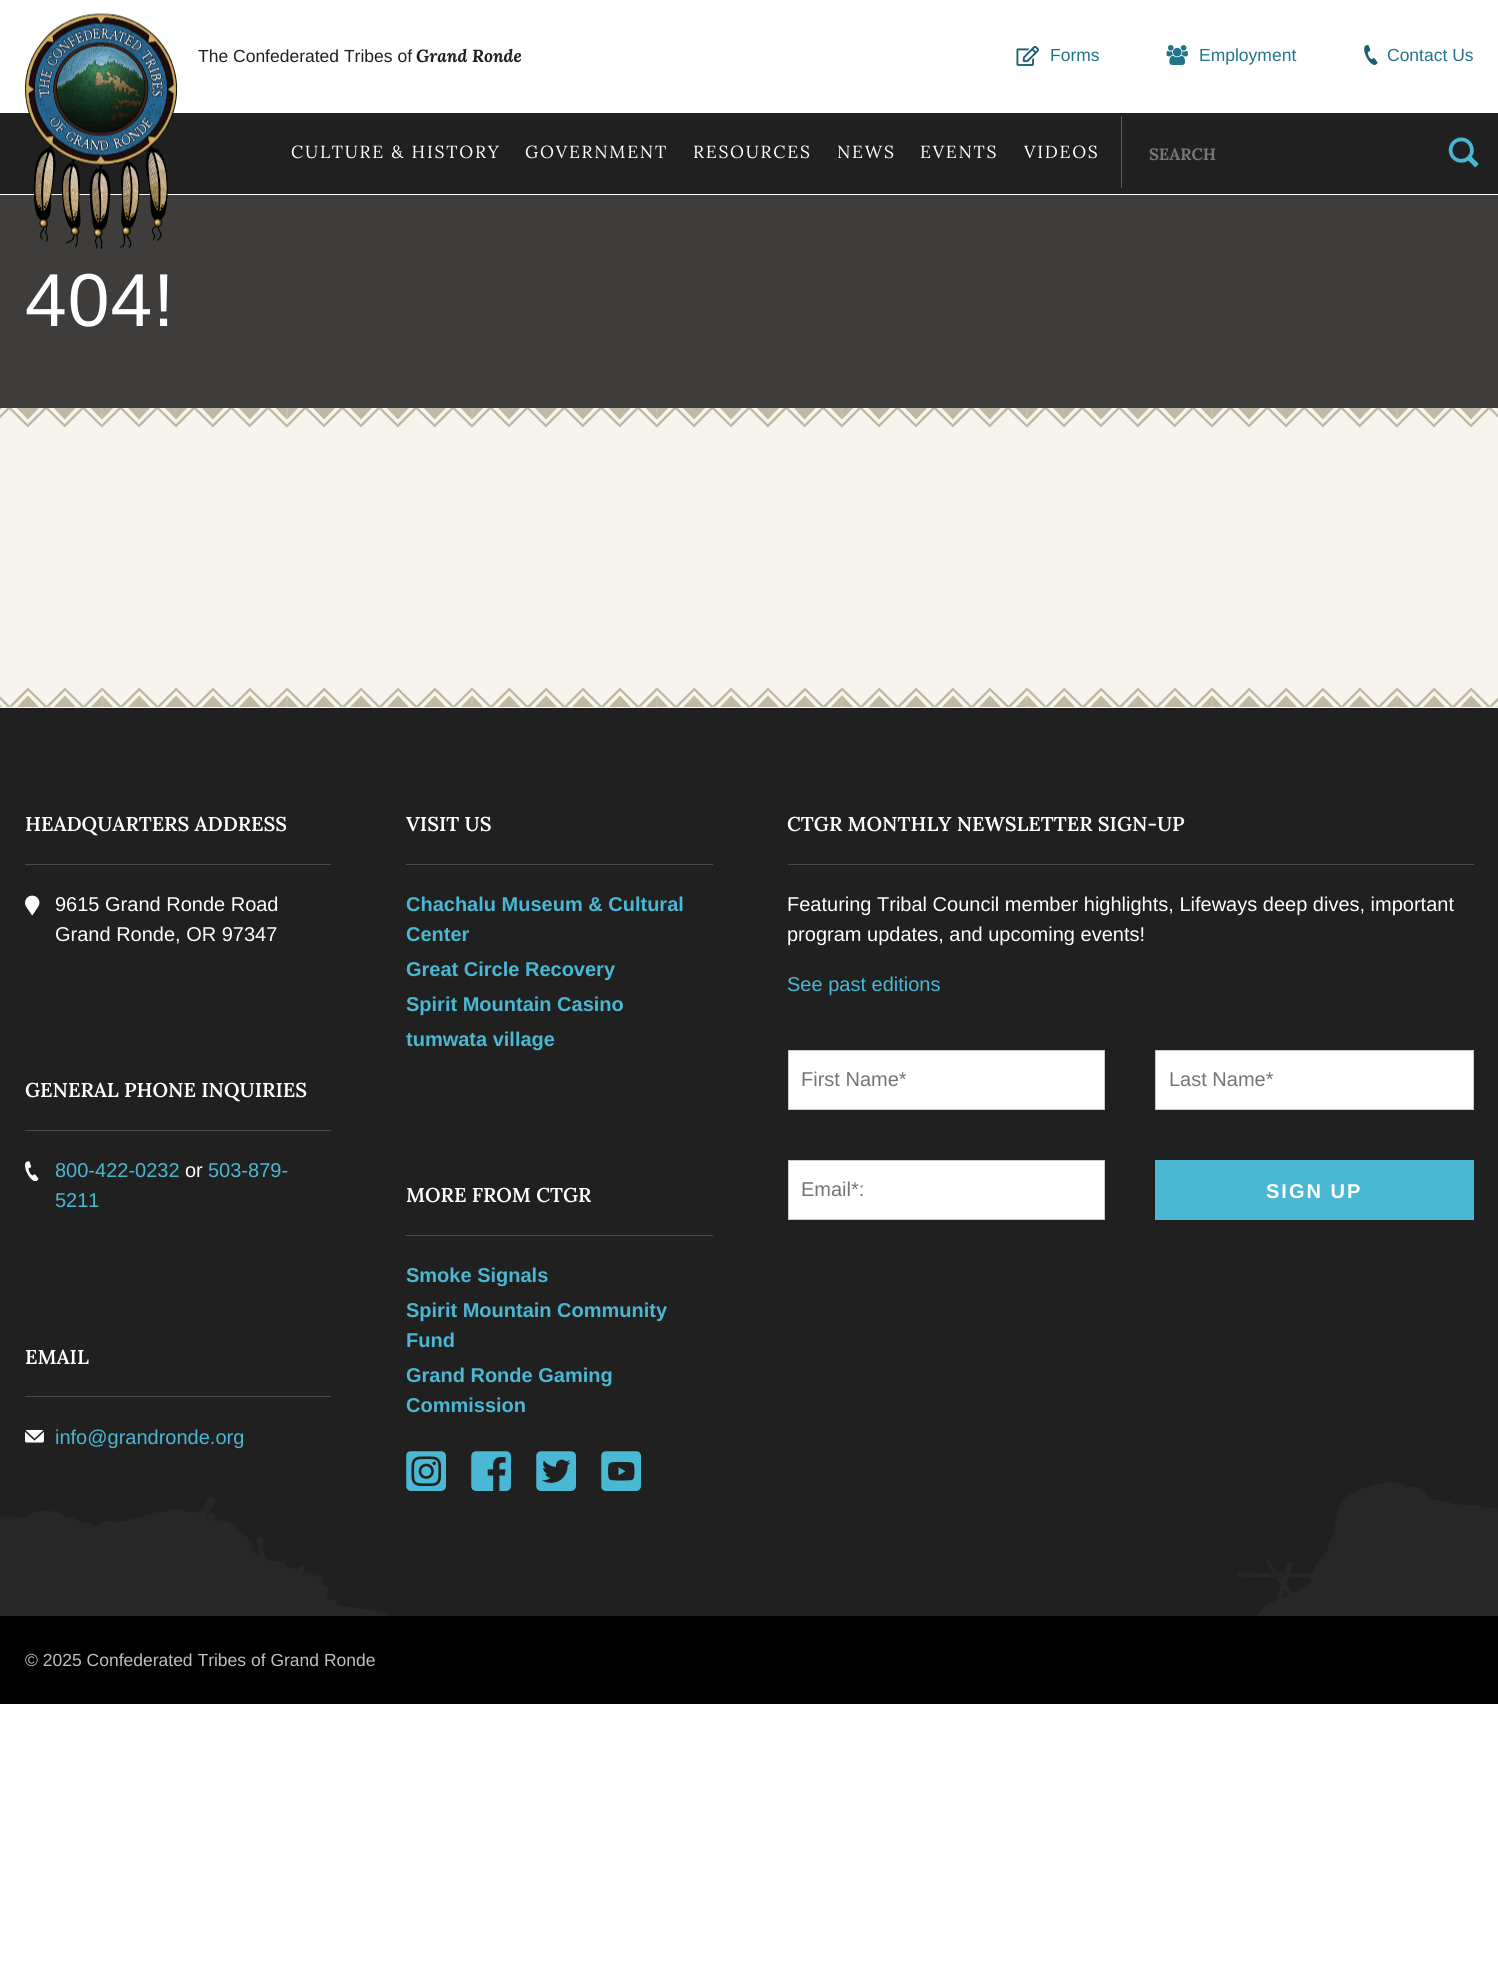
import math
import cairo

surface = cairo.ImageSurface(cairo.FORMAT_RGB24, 1498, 1964)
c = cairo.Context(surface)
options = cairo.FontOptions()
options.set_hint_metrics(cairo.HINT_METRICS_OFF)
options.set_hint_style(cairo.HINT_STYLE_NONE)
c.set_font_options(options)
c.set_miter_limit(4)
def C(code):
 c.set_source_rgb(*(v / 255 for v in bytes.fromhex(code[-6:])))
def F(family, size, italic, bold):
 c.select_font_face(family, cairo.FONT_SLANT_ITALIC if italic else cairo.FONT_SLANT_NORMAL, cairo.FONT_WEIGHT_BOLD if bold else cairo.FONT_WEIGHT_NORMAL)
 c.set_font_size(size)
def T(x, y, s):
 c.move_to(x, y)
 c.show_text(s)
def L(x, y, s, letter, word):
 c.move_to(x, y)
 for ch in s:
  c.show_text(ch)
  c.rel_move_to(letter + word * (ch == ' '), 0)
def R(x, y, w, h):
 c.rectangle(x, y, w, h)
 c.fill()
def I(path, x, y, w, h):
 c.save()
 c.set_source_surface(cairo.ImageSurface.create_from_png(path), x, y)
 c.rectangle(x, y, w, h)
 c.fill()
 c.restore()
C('ffffff')
c.paint()
C('f6f4ed')
R(0,408,1498,300)
C('202020')
R(0,113,1498,81)
C('3e3d3b')
R(0,195,1498,213)
I('1.png',25,13,153,236)
F('Liberation Sans',17.5,0,0)
C('202020')
T(198,62,'The Confederated Tribes of')
F('Lora',17.5,1,1)
T(416,62,'Grand Ronde')
I('2.png',1016,46,23,20)
F('Liberation Sans',17.5,0,0)
C('21758a')
T(1050,61,'Forms')
I('3.png',1166,45,22,20)
T(1199,61,'Employment')
I('4.png',1364,45,14,20)
T(1387,61,'Contact Us')
F('Lora',17.5,0,0)
C('ffffff')
L(291,158,'CULTURE & HISTORY',1.75,0)
L(525,158,'GOVERNMENT',1.75,0)
L(693,158,'RESOURCES',1.75,0)
L(837,158,'NEWS',1.75,0)
L(920,158,'EVENTS',1.75,0)
L(1024,158,'VIDEOS',1.75,0)
C('585858')
R(1121,116,1,72)
F('Lora',16.5,0,1)
C('757575')
T(1149,160,'SEARCH')
I('5.png',1448,137,31,31)
F('Liberation Sans',75,0,0)
C('ffffff')
L(25,326,'404!',1,0)
I('6.png',0,408,1498,20)
C('202020')
R(0,708,1498,908)
I('7.png',0,1482,1498,134)
I('8.png',0,687,1498,20)
C('4b4b4b')
R(25,864,306,1)
F('Lora SemiBold',20,0,0)
C('ffffff')
T(25,831,'HEADQUARTERS ADDRESS')
I('9.png',25,895,15,21)
F('Liberation Sans',20,0,0)
T(55,911,'9615 Grand Ronde Road')
T(55,941,'Grand Ronde, OR 97347')
C('4b4b4b')
R(25,1130,306,1)
F('Lora SemiBold',20,0,0)
C('ffffff')
T(25,1097,'GENERAL PHONE INQUIRIES')
I('10.png',25,1161,14,20)
F('Liberation Sans',20,0,0)
C('4ab8d3')
T(55,1177,'800-422-0232')
C('ffffff')
T(185,1177,'or')
C('4ab8d3')
T(208,1177,'503-879-')
T(55,1207,'5211')
C('4b4b4b')
R(25,1396,306,1)
F('Lora SemiBold',20,0,0)
C('ffffff')
T(25,1364,'EMAIL')
I('11.png',25,1430,19,13)
F('Liberation Sans',20,0,0)
C('4ab8d3')
T(55,1444,'info@grandronde.org')
C('4b4b4b')
R(406,864,307,1)
F('Lora SemiBold',20,0,0)
C('ffffff')
T(406,831,'VISIT US')
F('Liberation Sans',20,0,1)
C('4ab8d3')
T(406,911,'Chachalu Museum & Cultural')
T(406,941,'Center')
T(406,976,'Great Circle Recovery')
T(406,1011,'Spirit Mountain Casino')
T(406,1046,'tumwata village')
C('4b4b4b')
R(406,1235,307,1)
F('Lora SemiBold',20,0,0)
C('ffffff')
T(406,1202,'MORE FROM CTGR')
F('Liberation Sans',20,0,1)
C('4ab8d3')
T(406,1282,'Smoke Signals')
T(406,1317,'Spirit Mountain Community')
T(406,1347,'Fund')
T(406,1382,'Grand Ronde Gaming')
T(406,1412,'Commission')
I('12.png',406,1451,40,40)
I('13.png',471,1451,40,40)
I('14.png',536,1451,40,40)
I('15.png',601,1451,40,40)
C('4b4b4b')
R(788,864,686,1)
F('Lora SemiBold',20,0,0)
C('ffffff')
T(787,831,'CTGR MONTHLY NEWSLETTER SIGN-UP')
F('Liberation Sans',20,0,0)
T(787,911,'Featuring Tribal Council member highlights, Lifeways deep dives, important')
T(787,941,'program updates, and upcoming events!')
C('4ab8d3')
T(787,991,'See past editions')
C('ffffff')
c.rectangle(788.5,1050.5,316,59)
c.fill_preserve()
C('c9c9c9')
c.set_line_width(1)
c.stroke()
C('757575')
T(801,1086,'First Name*')
C('ffffff')
c.rectangle(1155.5,1050.5,318,59)
c.fill_preserve()
C('c9c9c9')
c.stroke()
C('757575')
T(1169,1086,'Last Name*')
C('ffffff')
c.rectangle(788.5,1160.5,316,59)
c.fill_preserve()
C('c9c9c9')
c.stroke()
C('757575')
T(801,1196,'Email*:')
C('4ab8d3')
R(1155,1160,319,60)
F('Liberation Sans',20,0,1)
C('ffffff')
L(1266,1198,'SIGN UP',2,0)
C('000000')
R(0,1616,1498,88)
F('Liberation Sans',17.5,0,0)
C('bfbfbf')
T(25,1666,'© 2025 Confederated Tribes of Grand Ronde')
surface.write_to_png('o.png')
